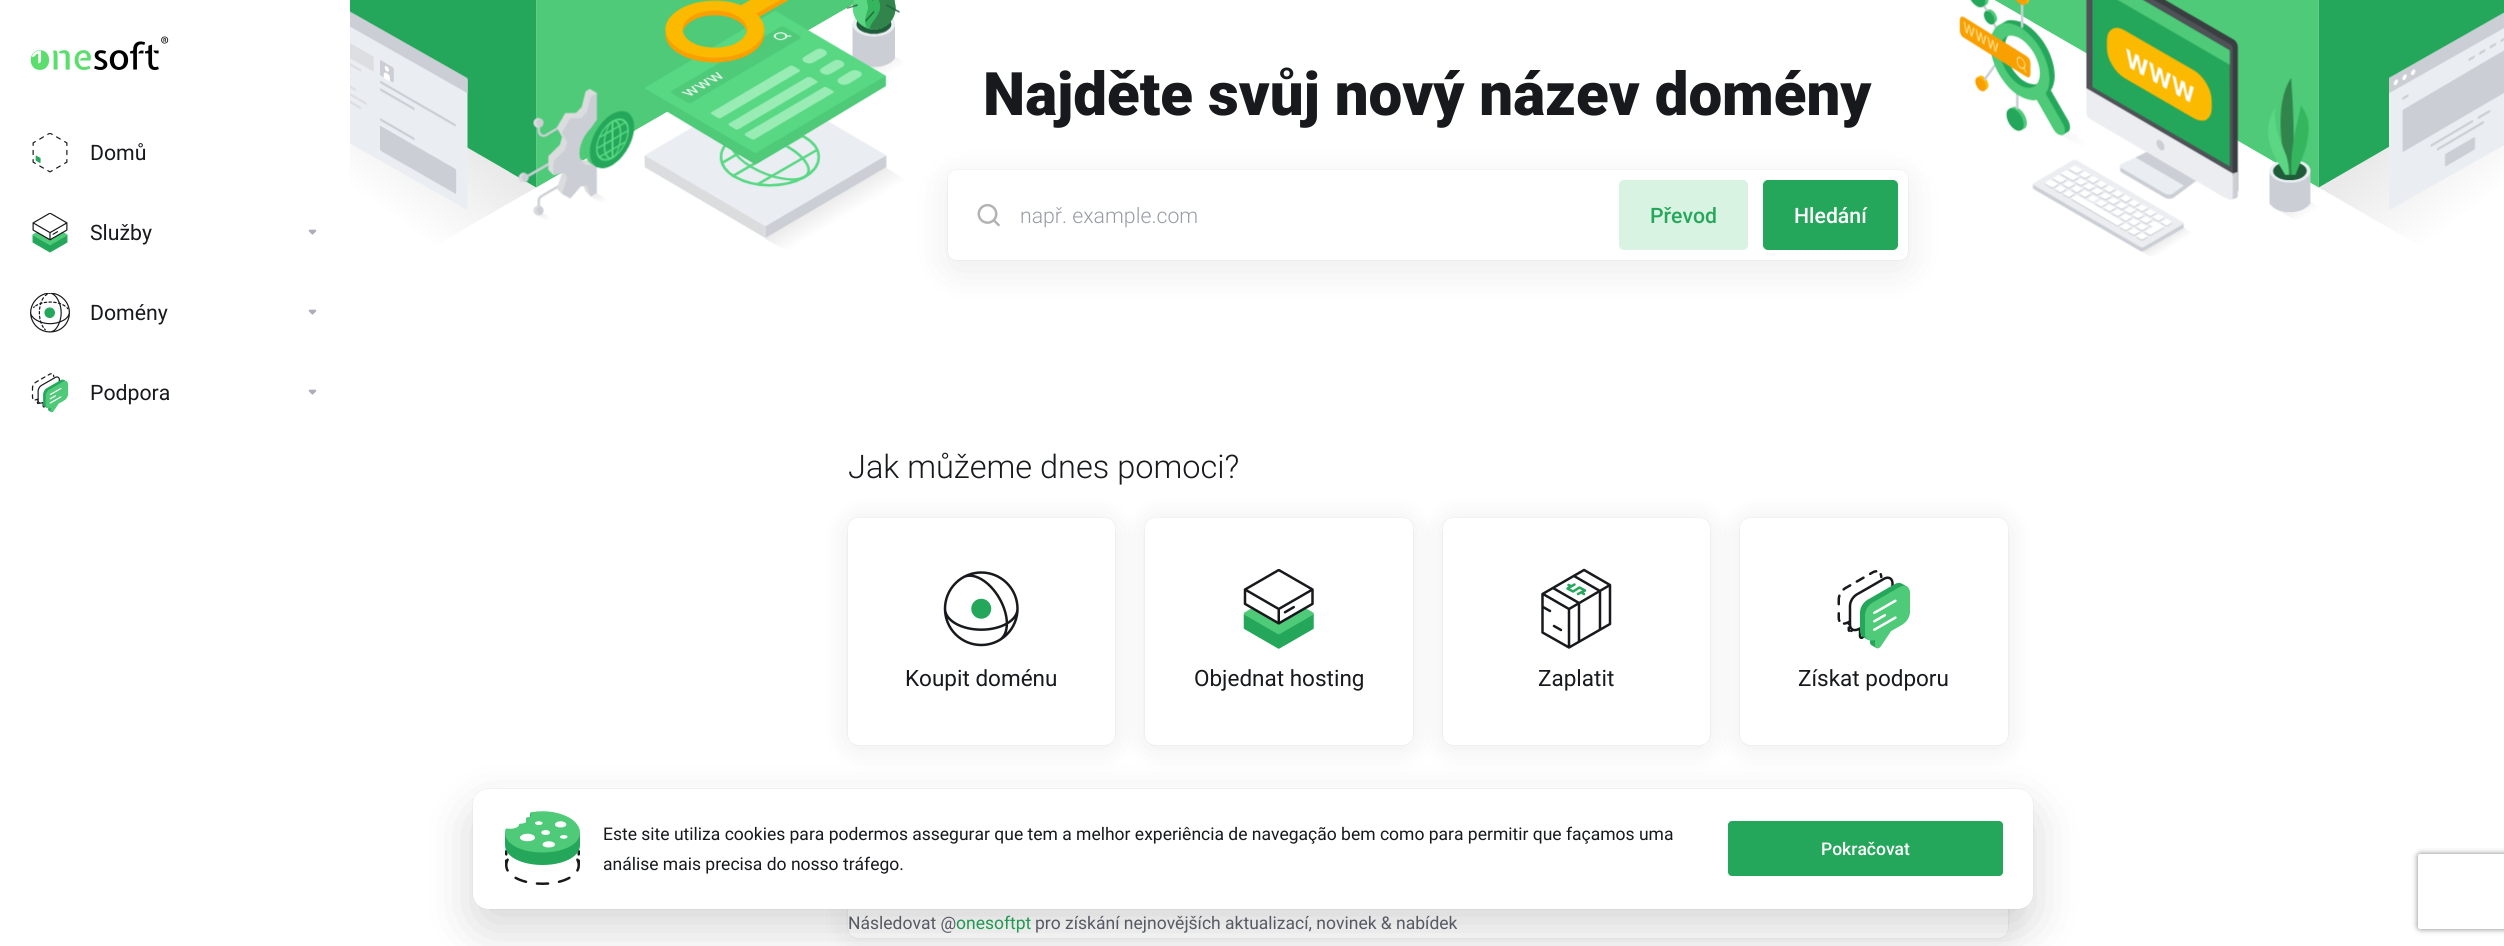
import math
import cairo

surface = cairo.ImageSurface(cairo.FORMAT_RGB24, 2504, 946)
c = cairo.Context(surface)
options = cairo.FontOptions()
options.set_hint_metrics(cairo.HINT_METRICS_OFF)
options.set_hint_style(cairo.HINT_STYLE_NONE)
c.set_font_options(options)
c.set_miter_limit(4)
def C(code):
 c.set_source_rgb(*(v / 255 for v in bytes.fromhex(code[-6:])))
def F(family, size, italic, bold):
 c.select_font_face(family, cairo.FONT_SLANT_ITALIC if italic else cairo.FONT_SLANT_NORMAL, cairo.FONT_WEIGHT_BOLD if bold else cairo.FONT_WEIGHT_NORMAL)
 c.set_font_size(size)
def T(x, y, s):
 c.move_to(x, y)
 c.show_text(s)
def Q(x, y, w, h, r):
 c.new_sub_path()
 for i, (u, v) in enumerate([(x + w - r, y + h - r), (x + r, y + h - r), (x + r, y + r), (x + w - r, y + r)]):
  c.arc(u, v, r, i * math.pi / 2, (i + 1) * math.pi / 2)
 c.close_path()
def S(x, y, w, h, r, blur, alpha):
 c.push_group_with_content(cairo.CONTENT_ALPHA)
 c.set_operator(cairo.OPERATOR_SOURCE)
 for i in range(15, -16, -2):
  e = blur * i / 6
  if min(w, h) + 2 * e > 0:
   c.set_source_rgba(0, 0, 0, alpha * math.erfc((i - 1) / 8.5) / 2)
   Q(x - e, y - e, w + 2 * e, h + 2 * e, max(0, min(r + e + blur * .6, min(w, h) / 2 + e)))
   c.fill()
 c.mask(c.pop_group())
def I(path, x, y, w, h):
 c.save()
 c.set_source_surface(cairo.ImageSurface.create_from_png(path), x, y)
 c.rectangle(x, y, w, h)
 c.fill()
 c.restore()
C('ffffff')
c.paint()
I('1.png',30,36,139,34)
I('2.png',32,133,36,40)
F('Roboto',21.25,0,0)
C('17191c')
T(90,160,'Domů')
I('3.png',32,213,36,40)
T(90,240,'Služby')
I('4.png',308,229,9,6)
I('5.png',30,293,40,40)
T(90,320,'Domény')
I('4.png',308,309,9,6)
I('6.png',31,373,38,40)
T(90,400,'Podpora')
I('4.png',308,389,9,6)
I('7.png',350,0,2154,256)
C('000000')
S(948,180,960,90,8,20,.08)
F('Roboto Black',60,0,0)
C('17191c')
T(983,115,'Najděte svůj nový název domény')
C('000000')
S(948,170,960,90,8,.5,.12)
C('ffffff')
Q(948,170,960,90,8)
c.fill()
I('8.png',977,203,23,24)
F('Roboto Light',21.25,0,0)
C('979ba4')
T(1020,223,'např. example.com')
C('d8f3e1')
Q(1619.5,180.5,128,69,4.5)
c.fill_preserve()
c.set_line_width(1)
c.stroke()
F('Roboto Medium',21.25,0,0)
C('25a75b')
T(1650,223,'Převod')
Q(1763.5,180.5,134,69,4.5)
c.fill_preserve()
c.stroke()
C('ffffff')
T(1794,223,'Hledání')
c.save()
c.set_fill_rule(cairo.FILL_RULE_EVEN_ODD)
c.new_path()
c.move_to(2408,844)
c.line_to(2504,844)
c.line_to(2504,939)
c.line_to(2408,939)
c.close_path()
c.move_to(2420.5,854)
c.line_to(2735.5,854)
c.curve_to(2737,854,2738,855,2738,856.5)
c.line_to(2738,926.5)
c.curve_to(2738,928,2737,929,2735.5,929)
c.line_to(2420.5,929)
c.curve_to(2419,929,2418,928,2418,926.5)
c.line_to(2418,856.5)
c.curve_to(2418,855,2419,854,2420.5,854)
c.close_path()
c.clip()
C('808080')
S(2418,854,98,75,2.5,3,1)
c.restore()
F('Roboto Light',32.5,0,0)
C('17191c')
T(848,478,'Jak můžeme dnes pomoci?')
C('000000')
S(848,520,267,228,10,15,.08)
S(848,518,267,227,10,.5,.1)
C('ffffff')
Q(848,518,267,227,10)
c.fill()
I('9.png',943,571,76,76)
F('Roboto',22.5,0,0)
C('17191c')
T(905,686,'Koupit doménu')
C('000000')
S(1145,520,268,228,10,15,.08)
S(1145,518,268,227,10,.5,.1)
C('ffffff')
Q(1145,518,268,227,10)
c.fill()
I('10.png',1243,569,71,80)
C('17191c')
T(1194,686,'Objednat hosting')
C('000000')
S(1443,520,267,228,10,15,.08)
S(1443,518,267,227,10,.5,.1)
C('ffffff')
Q(1443,518,267,227,10)
c.fill()
c.new_path()
c.move_to(1574.5,584.5)
c.line_to(1567.5,588.5)
c.line_to(1573,591.5)
c.line_to(1579.5,587.5)
c.line_to(1585,590.5)
c.line_to(1578,594)
c.move_to(1568.5,585)
c.line_to(1571,586)
c.move_to(1581.5,592.5)
c.line_to(1584,594)
C('25a75b')
c.set_line_width(2.5)
c.set_line_cap(cairo.LINE_CAP_ROUND)
c.set_line_join(cairo.LINE_JOIN_ROUND)
c.stroke()
c.new_path()
c.move_to(1554,626)
c.line_to(1561,630)
c.move_to(1553,588)
c.line_to(1579,603)
c.line_to(1579,641)
c.move_to(1574,576)
c.line_to(1600,591)
c.line_to(1600,629)
c.move_to(1543,607)
c.line_to(1550,611)
c.move_to(1543,594)
c.line_to(1569,609)
c.line_to(1610,585)
c.move_to(1569,609)
c.line_to(1569,646)
c.move_to(1542.5,594)
c.line_to(1542.5,632.5)
c.line_to(1569,647.5)
c.line_to(1610,624)
c.line_to(1610,585)
c.line_to(1584,570)
c.close_path()
C('17191c')
c.stroke()
T(1538,686,'Zaplatit')
C('000000')
S(1740,520,268,228,10,15,.08)
S(1740,518,268,227,10,.5,.1)
C('ffffff')
Q(1740,518,268,227,10)
c.fill()
I('11.png',1837,570,73,79)
C('17191c')
T(1798,686,'Získat podporu')
C('000000')
S(848,880,1160,60,10,15,.08)
S(848,878,1160,60,10,.5,.1)
C('ffffff')
Q(848,878,1160,60,10)
c.fill()
F('Roboto',17.5,0,0)
C('5e636e')
T(848,929,'Následovat @')
C('25a75b')
T(956,929,'onesoftpt')
C('5e636e')
T(1035,929,'pro získání nejnovějších aktualizací, novinek & nabídek')
C('000000')
S(473,809,1560,120,15,25,.16)
S(473,789,1560,120,15,.5,.12)
C('ffffff')
Q(473,789,1560,120,15)
c.fill()
I('12.png',505,811,75,74)
C('17191c')
T(603,840,'Este site utiliza cookies para podermos assegurar que tem a melhor experiência de navegação bem como para permitir que façamos uma')
T(603,870,'análise mais precisa do nosso tráfego.')
C('25a75b')
Q(1728.5,821.5,274,54,3.5)
c.fill_preserve()
c.set_line_width(1)
c.set_line_cap(cairo.LINE_CAP_BUTT)
c.set_line_join(cairo.LINE_JOIN_MITER)
c.stroke()
F('Roboto Medium',17.5,0,0)
C('ffffff')
T(1821,855,'Pokračovat')
surface.write_to_png('o.png')
